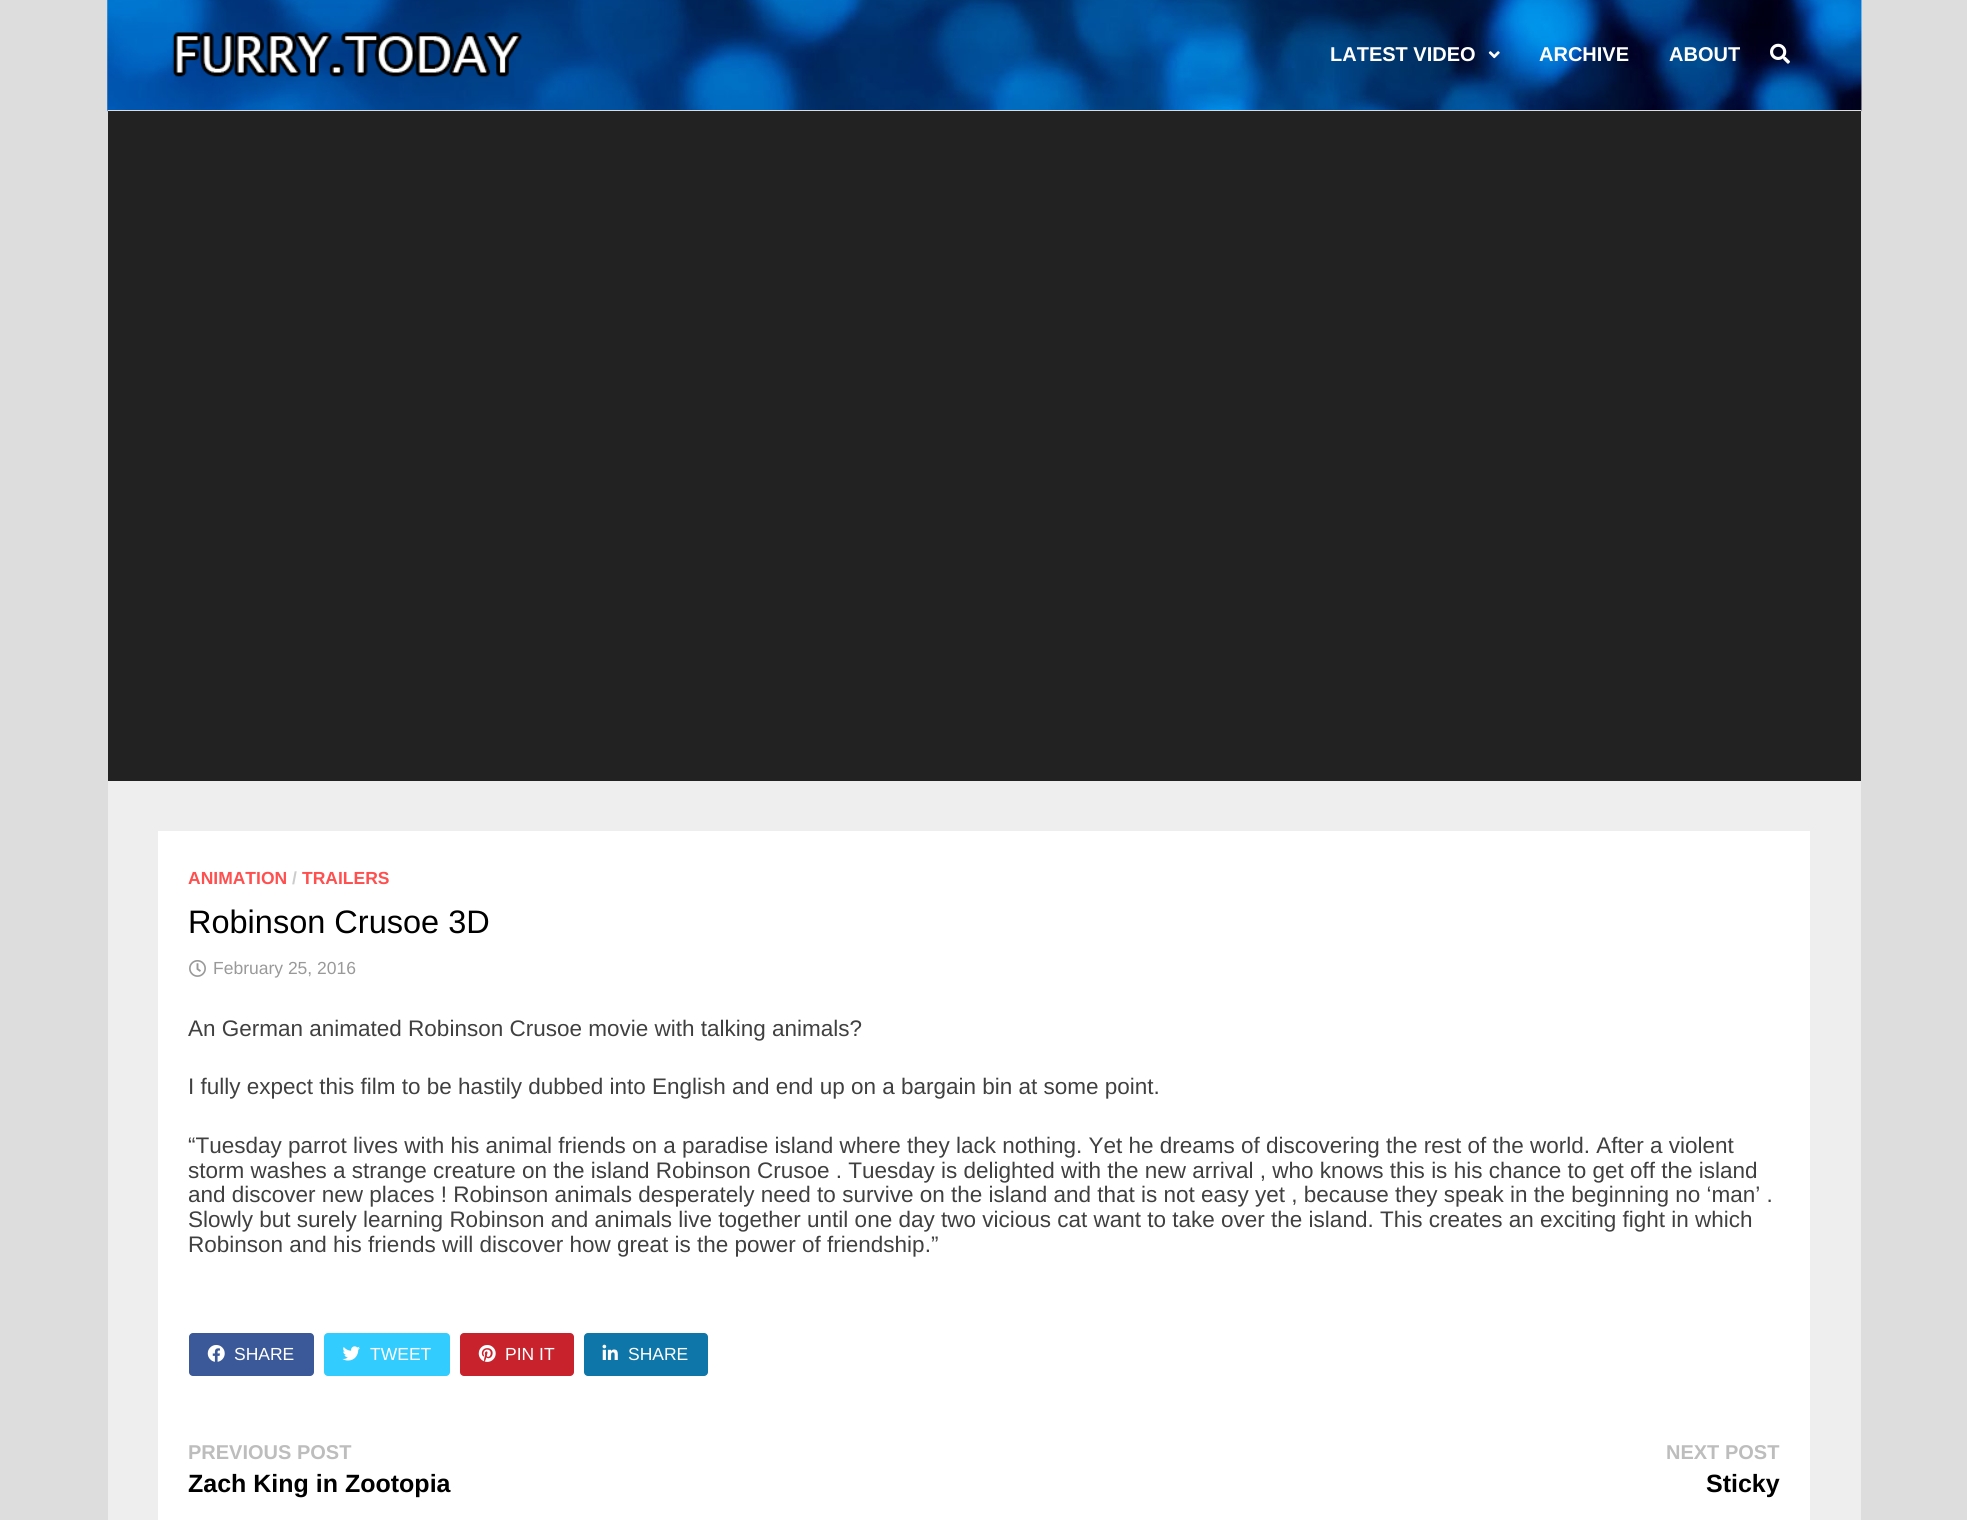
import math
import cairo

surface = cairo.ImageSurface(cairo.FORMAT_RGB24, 1967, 1520)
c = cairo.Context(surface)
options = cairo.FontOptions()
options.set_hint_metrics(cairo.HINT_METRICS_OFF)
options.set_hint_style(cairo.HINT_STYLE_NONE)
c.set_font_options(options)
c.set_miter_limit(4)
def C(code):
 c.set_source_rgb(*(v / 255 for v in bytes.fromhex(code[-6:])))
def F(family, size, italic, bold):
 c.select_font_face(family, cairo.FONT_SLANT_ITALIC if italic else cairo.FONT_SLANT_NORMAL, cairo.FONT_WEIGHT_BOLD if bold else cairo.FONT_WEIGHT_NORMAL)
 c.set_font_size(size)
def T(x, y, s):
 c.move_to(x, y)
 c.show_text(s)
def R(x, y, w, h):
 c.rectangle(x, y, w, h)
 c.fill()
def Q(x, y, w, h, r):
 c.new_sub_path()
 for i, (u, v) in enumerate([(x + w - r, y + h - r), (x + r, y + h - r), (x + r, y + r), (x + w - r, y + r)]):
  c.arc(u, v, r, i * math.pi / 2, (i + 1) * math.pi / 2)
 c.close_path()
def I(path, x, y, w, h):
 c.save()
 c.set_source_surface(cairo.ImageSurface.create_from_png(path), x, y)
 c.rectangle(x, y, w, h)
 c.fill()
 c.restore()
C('dddddd')
c.paint()
I('1.png',107,0,1755,112)
C('dddddd')
R(108,110,1753,1)
I('2.png',107,0,1755,110)
I('3.png',172,32,351,45)
F('Liberation Sans',20,0,1)
C('ffffff')
T(1330,61,'LATEST VIDEO')
I('4.png',1488,51,12,8)
T(1539,61,'ARCHIVE')
T(1669,61,'ABOUT')
I('5.png',1770,43,20,21)
C('eeeeee')
R(108,781,1753,739)
C('222222')
R(108,111,1753,670)
C('ffffff')
R(158,831,1652,689)
F('Liberation Sans',17.5,0,1)
C('ff4f4f')
T(188,884,'ANIMATION')
C('cccccc')
T(292,884,'/')
C('ff4f4f')
T(302,884,'TRAILERS')
F('Liberation Sans',32.5,0,0)
C('000000')
T(188,933,'Robinson Crusoe 3D')
I('6.png',189,960,17,17)
F('Liberation Sans',17.5,0,0)
C('999999')
T(213,974,'February 25, 2016')
F('Liberation Sans',22.5,0,0)
C('404040')
T(188,1036,'An German animated Robinson Crusoe movie with talking animals?')
T(188,1094,'I fully expect this film to be hastily dubbed into English and end up on a bargain bin at some point.')
T(188,1153,'“Tuesday parrot lives with his animal friends on a paradise island where they lack nothing. Yet he dreams of discovering the rest of the world. After a violent')
T(188,1178,'storm washes a strange creature on the island Robinson Crusoe . Tuesday is delighted with the new arrival , who knows this is his chance to get off the island')
T(188,1202,'and discover new places ! Robinson animals desperately need to survive on the island and that is not easy yet , because they speak in the beginning no ‘man’ .')
T(188,1227,'Slowly but surely learning Robinson and animals live together until one day two vicious cat want to take over the island. This creates an exciting fight in which')
T(188,1252,'Robinson and his friends will discover how great is the power of friendship.”')
C('3b5998')
Q(189,1333,125,43,4)
c.fill()
I('7.png',207,1345,18,17)
F('Liberation Sans',17.5,0,0)
C('ffffff')
T(234,1360,'SHARE')
C('33ccff')
Q(324,1333,126,43,4)
c.fill()
I('8.png',342,1346,18,15)
C('ffffff')
T(370,1360,'TWEET')
C('c8232c')
Q(460,1333,114,43,4)
c.fill()
I('9.png',478,1345,18,17)
C('ffffff')
T(505,1360,'PIN IT')
C('0e76a8')
Q(584,1333,124,43,4)
c.fill()
I('10.png',602,1344,16,16)
C('ffffff')
T(628,1360,'SHARE')
F('Liberation Sans',20,0,1)
C('bdbdbd')
T(188,1459,'PREVIOUS POST')
F('Liberation Sans',25,0,1)
C('000000')
T(188,1492,'Zach King in Zootopia')
F('Liberation Sans',20,0,1)
C('bdbdbd')
T(1666,1459,'NEXT POST')
F('Liberation Sans',25,0,1)
C('000000')
T(1706,1492,'Sticky')
surface.write_to_png('o.png')
